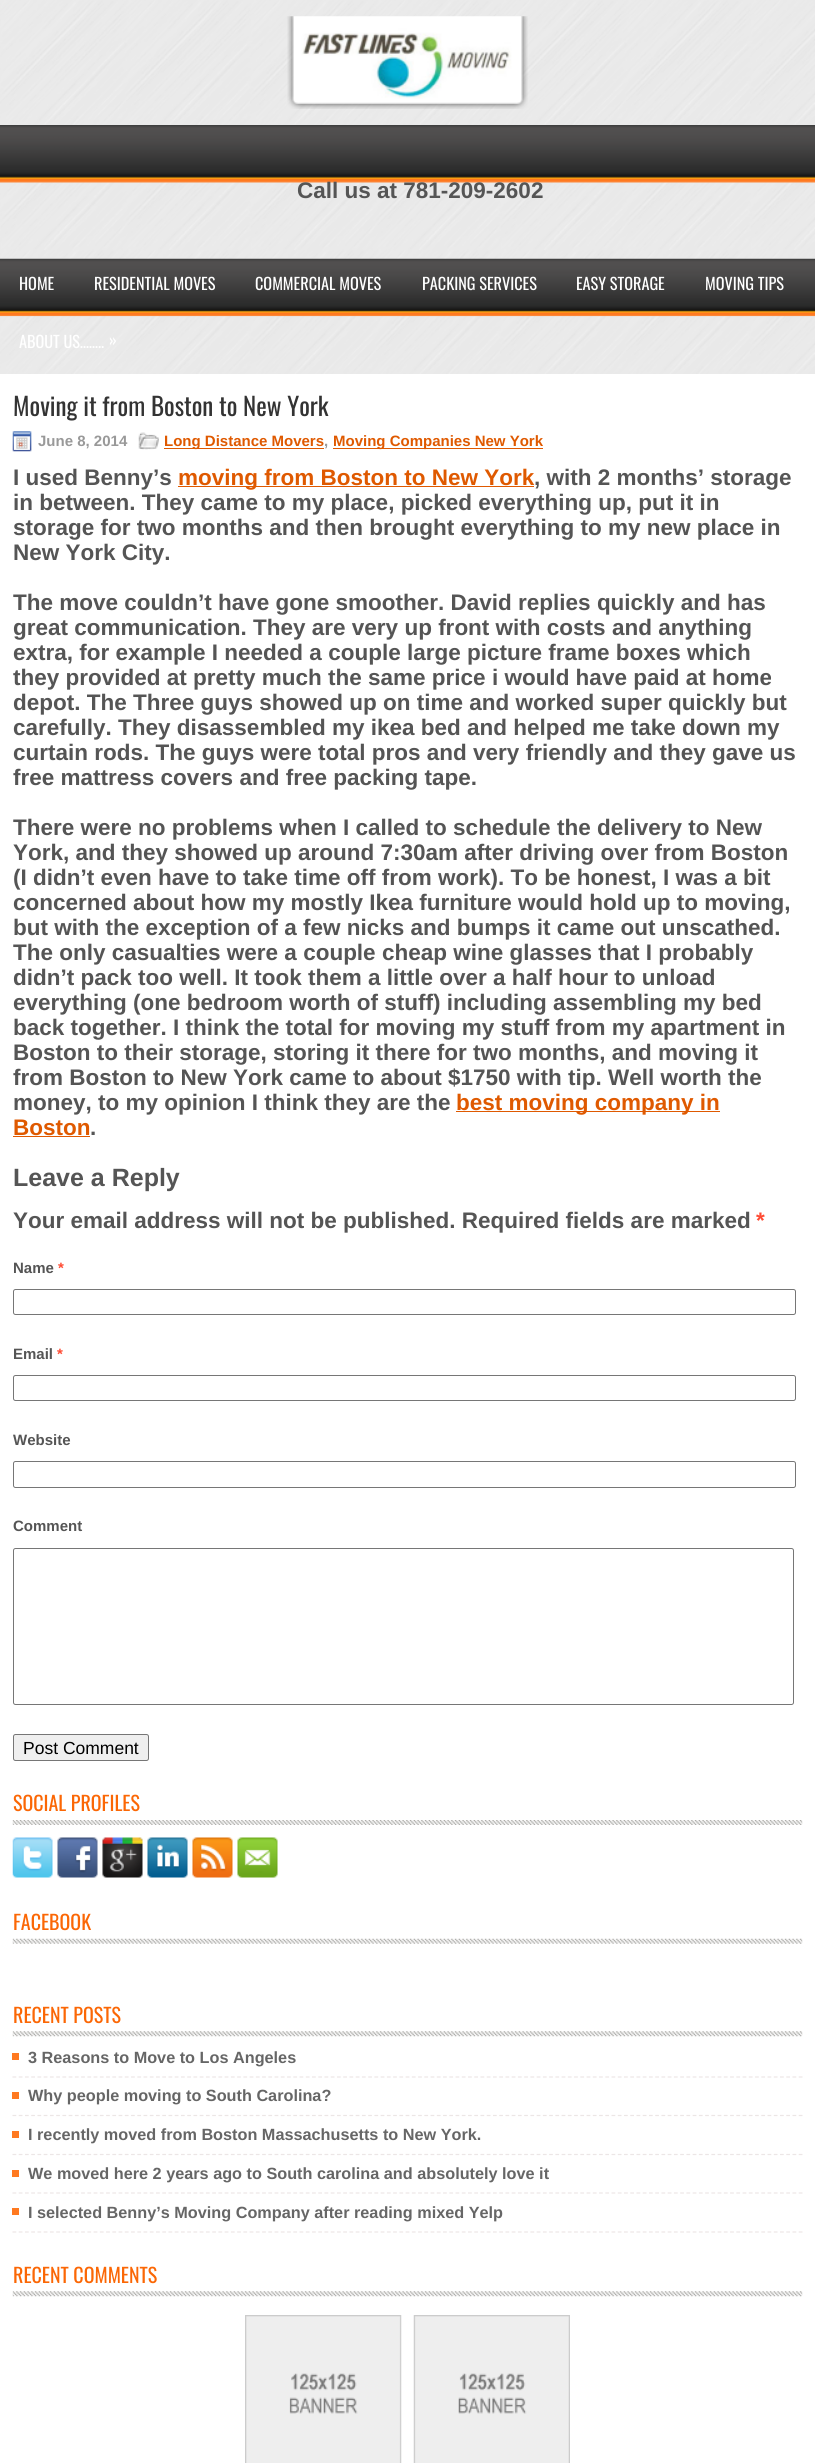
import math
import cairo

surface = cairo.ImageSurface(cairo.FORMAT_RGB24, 815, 2463)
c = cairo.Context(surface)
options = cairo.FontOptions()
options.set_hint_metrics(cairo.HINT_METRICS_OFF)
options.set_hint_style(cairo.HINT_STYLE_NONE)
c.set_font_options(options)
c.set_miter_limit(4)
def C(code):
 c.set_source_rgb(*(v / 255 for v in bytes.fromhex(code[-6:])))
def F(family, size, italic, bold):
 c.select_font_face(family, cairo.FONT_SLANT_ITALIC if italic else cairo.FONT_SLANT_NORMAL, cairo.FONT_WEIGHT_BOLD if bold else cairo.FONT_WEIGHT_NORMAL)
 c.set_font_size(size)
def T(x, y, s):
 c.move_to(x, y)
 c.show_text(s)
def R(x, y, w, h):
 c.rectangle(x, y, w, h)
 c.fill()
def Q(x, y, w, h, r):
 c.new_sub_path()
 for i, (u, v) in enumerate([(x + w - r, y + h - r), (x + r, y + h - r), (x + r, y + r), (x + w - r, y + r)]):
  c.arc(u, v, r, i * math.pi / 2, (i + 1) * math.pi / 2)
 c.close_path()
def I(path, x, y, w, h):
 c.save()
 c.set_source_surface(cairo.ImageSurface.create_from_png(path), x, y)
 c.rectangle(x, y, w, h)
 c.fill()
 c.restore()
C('ffffff')
c.paint()
I('1.png',0,0,815,374)
I('2.png',0,125,815,58)
I('3.png',287,16,241,93)
F('Liberation Sans',22.5,0,1)
C('555555')
T(297,198,'Call us at 781-209-2602')
I('4.png',0,258,815,59)
F('Oswald',16.25,0,0)
C('ffffff')
T(19,290,'HOME')
T(94,290,'RESIDENTIAL MOVES')
T(255,290,'COMMERCIAL MOVES')
T(422,290,'PACKING SERVICES')
T(576,290,'EASY STORAGE')
T(705,290,'MOVING TIPS')
T(19,348,'ABOUT US……..')
T(109,346,'»')
F('Oswald',25,0,0)
C('333333')
T(13,416,'Moving it from Boston to New York')
I('5.png',12,431,20,21)
F('Liberation Sans',15,0,1)
C('999999')
T(38,446,'June 8, 2014')
I('6.png',138,432,21,18)
C('df5900')
R(164,448,160,1)
T(164,446,'Long Distance Movers')
C('999999')
T(324,446,',')
C('df5900')
R(333,448,210,1)
T(333,446,'Moving Companies New York')
F('Liberation Sans',22.5,0,1)
C('555555')
T(13,485,'I used Benny’s')
C('df5900')
R(178,486,356,1)
T(178,485,'moving from Boston to New York')
C('555555')
T(534,485,', with 2 months’ storage')
T(13,510,'in between. They came to my place, picked everything up, put it in')
T(13,535,'storage for two months and then brought everything to my new place in')
T(13,560,'New York City.')
c.save()
c.rectangle(13,393,790,1387)
c.clip()
T(13,610,'The move couldn’t have gone smoother. David replies quickly and has')
c.restore()
T(13,635,'great communication. They are very up front with costs and anything')
T(13,660,'extra, for example I needed a couple large picture frame boxes which')
T(13,685,'they provided at pretty much the same price i would have paid at home')
T(13,710,'depot. The Three guys showed up on time and worked super quickly but')
T(13,735,'carefully. They disassembled my ikea bed and helped me take down my')
T(13,760,'curtain rods. The guys were total pros and very friendly and they gave us')
T(13,785,'free mattress covers and free packing tape.')
c.save()
c.rectangle(13,393,790,1387)
c.clip()
T(13,835,'There were no problems when I called to schedule the delivery to New')
c.restore()
T(13,860,'York, and they showed up around 7:30am after driving over from Boston')
T(13,885,'(I didn’t even have to take time off from work). To be honest, I was a bit')
T(13,910,'concerned about how my mostly Ikea furniture would hold up to moving,')
T(13,935,'but with the exception of a few nicks and bumps it came out unscathed.')
c.save()
c.rectangle(13,393,790,1387)
c.clip()
T(13,960,'The only casualties were a couple cheap wine glasses that I probably')
c.restore()
T(13,985,'didn’t pack too well. It took them a little over a half hour to unload')
T(13,1010,'everything (one bedroom worth of stuff) including assembling my bed')
T(13,1035,'back together. I think the total for moving my stuff from my apartment in')
T(13,1060,'Boston to their storage, storing it there for two months, and moving it')
T(13,1085,'from Boston to New York came to about $1750 with tip. Well worth the')
T(13,1110,'money, to my opinion I think they are the')
C('df5900')
R(456,1111,264,1)
T(456,1110,'best moving company in')
T(13,1135,'Boston')
R(13,1136,77,1)
C('555555')
T(90,1135,'.')
F('Liberation Sans',25,0,1)
T(13,1186,'Leave a Reply')
F('Liberation Sans',22.5,0,1)
T(13,1228,'Your email address will not be published. Required fields are marked')
C('ff4b33')
T(756,1228,'*')
F('Liberation Sans',15,0,1)
C('555555')
T(13,1273,'Name')
C('ff4b33')
T(58,1273,'*')
Q(13.5,1289.5,782,25,2)
C('767676')
c.set_line_width(1)
c.stroke()
C('555555')
T(13,1359,'Email')
C('ff4b33')
T(57,1359,'*')
Q(13.5,1375.5,782,25,2)
C('767676')
c.stroke()
C('555555')
T(13,1445,'Website')
Q(13.5,1461.5,782,26,2)
C('767676')
c.stroke()
C('555555')
T(13,1531,'Comment')
Q(13.5,1548.5,780,156,2)
C('767676')
c.stroke()
C('efefef')
Q(13.5,1734.5,135,26,2)
c.fill_preserve()
C('767676')
c.stroke()
F('Liberation Sans',17.5,0,0)
C('000000')
T(23,1754,'Post Comment')
I('7.png',12,1820,791,5)
F('Oswald',20,0,0)
C('fb6705')
T(13,1811,'SOCIAL PROFILES')
I('8.png',12,1837,41,41)
I('9.png',57,1837,41,41)
I('10.png',102,1837,41,41)
I('11.png',147,1837,41,41)
I('12.png',192,1837,41,41)
I('13.png',237,1837,41,41)
I('14.png',12,1938,791,6)
T(13,1930,'FACEBOOK')
I('15.png',12,2031,791,6)
T(13,2023,'RECENT POSTS')
C('ff7920')
R(12,2053,7,7)
c.new_path()
c.move_to(12.5,2077)
c.line_to(802.5,2077)
C('ece6e6')
c.set_line_width(1.2)
c.set_dash([3.75,2.49])
c.stroke()
F('Liberation Sans',16.25,0,1)
C('666666')
T(28,2063,'3 Reasons to Move to Los Angeles')
C('ff7920')
R(12,2092,7,7)
c.new_path()
c.move_to(12.5,2115.5)
c.line_to(802.5,2115.5)
C('ece6e6')
c.stroke()
C('666666')
T(28,2101,'Why people moving to South Carolina?')
C('ff7920')
R(12,2131,7,7)
c.new_path()
c.move_to(12.5,2154.5)
c.line_to(802.5,2154.5)
C('ece6e6')
c.stroke()
C('666666')
T(28,2140,'I recently moved from Boston Massachusetts to New York.')
C('ff7920')
R(12,2170,7,7)
c.new_path()
c.move_to(12.5,2193)
c.line_to(802.5,2193)
C('ece6e6')
c.stroke()
C('666666')
T(28,2179,'We moved here 2 years ago to South carolina and absolutely love it')
C('ff7920')
R(12,2208,7,7)
c.new_path()
c.move_to(12.5,2232)
c.line_to(802.5,2232)
C('ece6e6')
c.stroke()
C('666666')
T(28,2218,'I selected Benny’s Moving Company after reading mixed Yelp')
I('16.png',12,2291,791,6)
F('Oswald',20,0,0)
C('fb6705')
T(13,2283,'RECENT COMMENTS')
I('17.png',245,2315,157,148)
I('18.png',413,2315,157,148)
surface.write_to_png('o.png')
